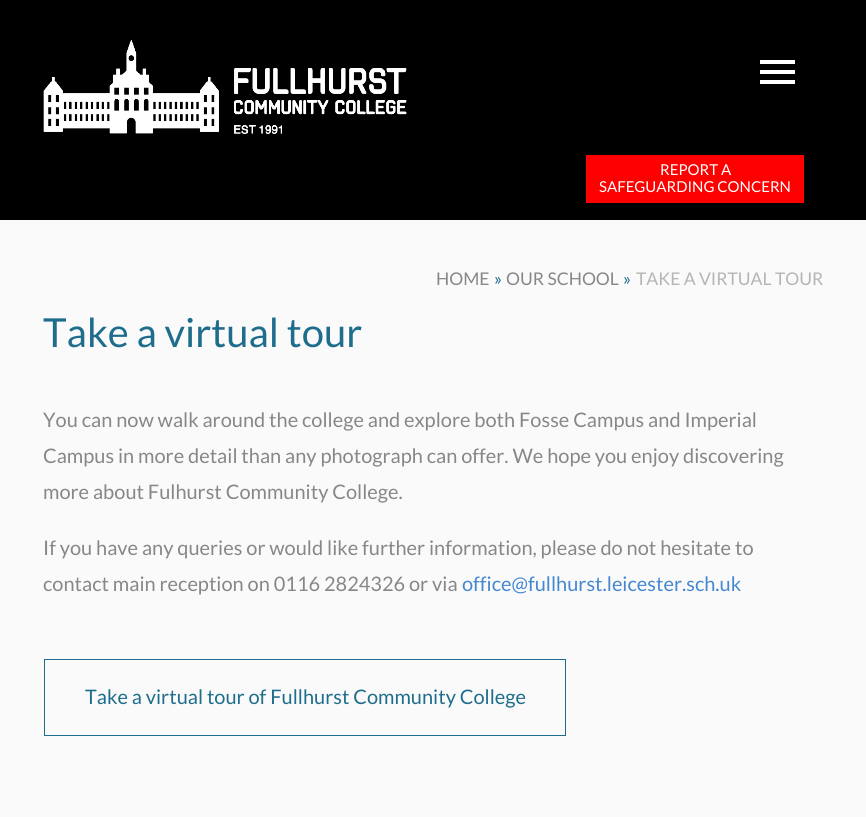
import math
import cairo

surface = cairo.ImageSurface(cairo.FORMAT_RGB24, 866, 817)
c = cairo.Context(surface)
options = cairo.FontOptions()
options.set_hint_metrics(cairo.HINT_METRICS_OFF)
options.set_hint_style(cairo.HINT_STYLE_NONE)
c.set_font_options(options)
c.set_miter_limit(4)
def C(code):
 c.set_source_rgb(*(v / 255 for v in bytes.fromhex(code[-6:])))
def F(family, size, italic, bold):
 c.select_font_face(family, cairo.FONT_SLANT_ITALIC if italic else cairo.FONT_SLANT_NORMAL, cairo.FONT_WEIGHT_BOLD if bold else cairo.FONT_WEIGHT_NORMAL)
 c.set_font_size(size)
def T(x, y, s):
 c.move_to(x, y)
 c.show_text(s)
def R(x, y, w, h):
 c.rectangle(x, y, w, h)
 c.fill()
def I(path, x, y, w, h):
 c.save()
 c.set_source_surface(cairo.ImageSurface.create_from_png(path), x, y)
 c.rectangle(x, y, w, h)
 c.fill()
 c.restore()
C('fafafa')
c.paint()
C('000000')
R(0,0,866,220)
I('1.png',43,40,364,94)
I('2.png',43,40,364,94)
C('ffffff')
R(760,60,35,4)
R(760,70,35,4)
R(760,80,35,4)
C('ff0000')
R(586,155,218,48)
F('Lato',15,0,0)
C('ffffff')
T(660,175,'REPORT A')
T(599,192,'SAFEGUARDING CONCERN')
F('Lato',17.5,0,0)
C('878787')
T(436,285,'HOME')
C('1e6d8c')
T(494,285,'»')
C('878787')
T(506,285,'OUR SCHOOL')
C('1e6d8c')
T(623,285,'»')
C('b5b5b5')
T(636,285,'TAKE A VIRTUAL TOUR')
F('Lato',40,0,0)
C('1e6d8c')
T(43,347,'Take a virtual tour')
F('Lato',20,0,0)
C('878787')
T(43,427,'You can now walk around the college and explore both Fosse Campus and Imperial')
T(43,463,'Campus in more detail than any photograph can offer. We hope you enjoy discovering')
T(43,499,'more about Fulhurst Community College.')
T(43,555,'If you have any queries or would like further information, please do not hesitate to')
T(43,591,'contact main reception on 0116 2824326 or via')
C('4587d0')
T(462,591,'office@fullhurst.leicester.sch.uk')
c.rectangle(44.5,659.5,521,76)
C('1e6d8c')
c.set_line_width(1)
c.stroke()
T(85,704,'Take a virtual tour of Fullhurst Community College')
surface.write_to_png('o.png')
